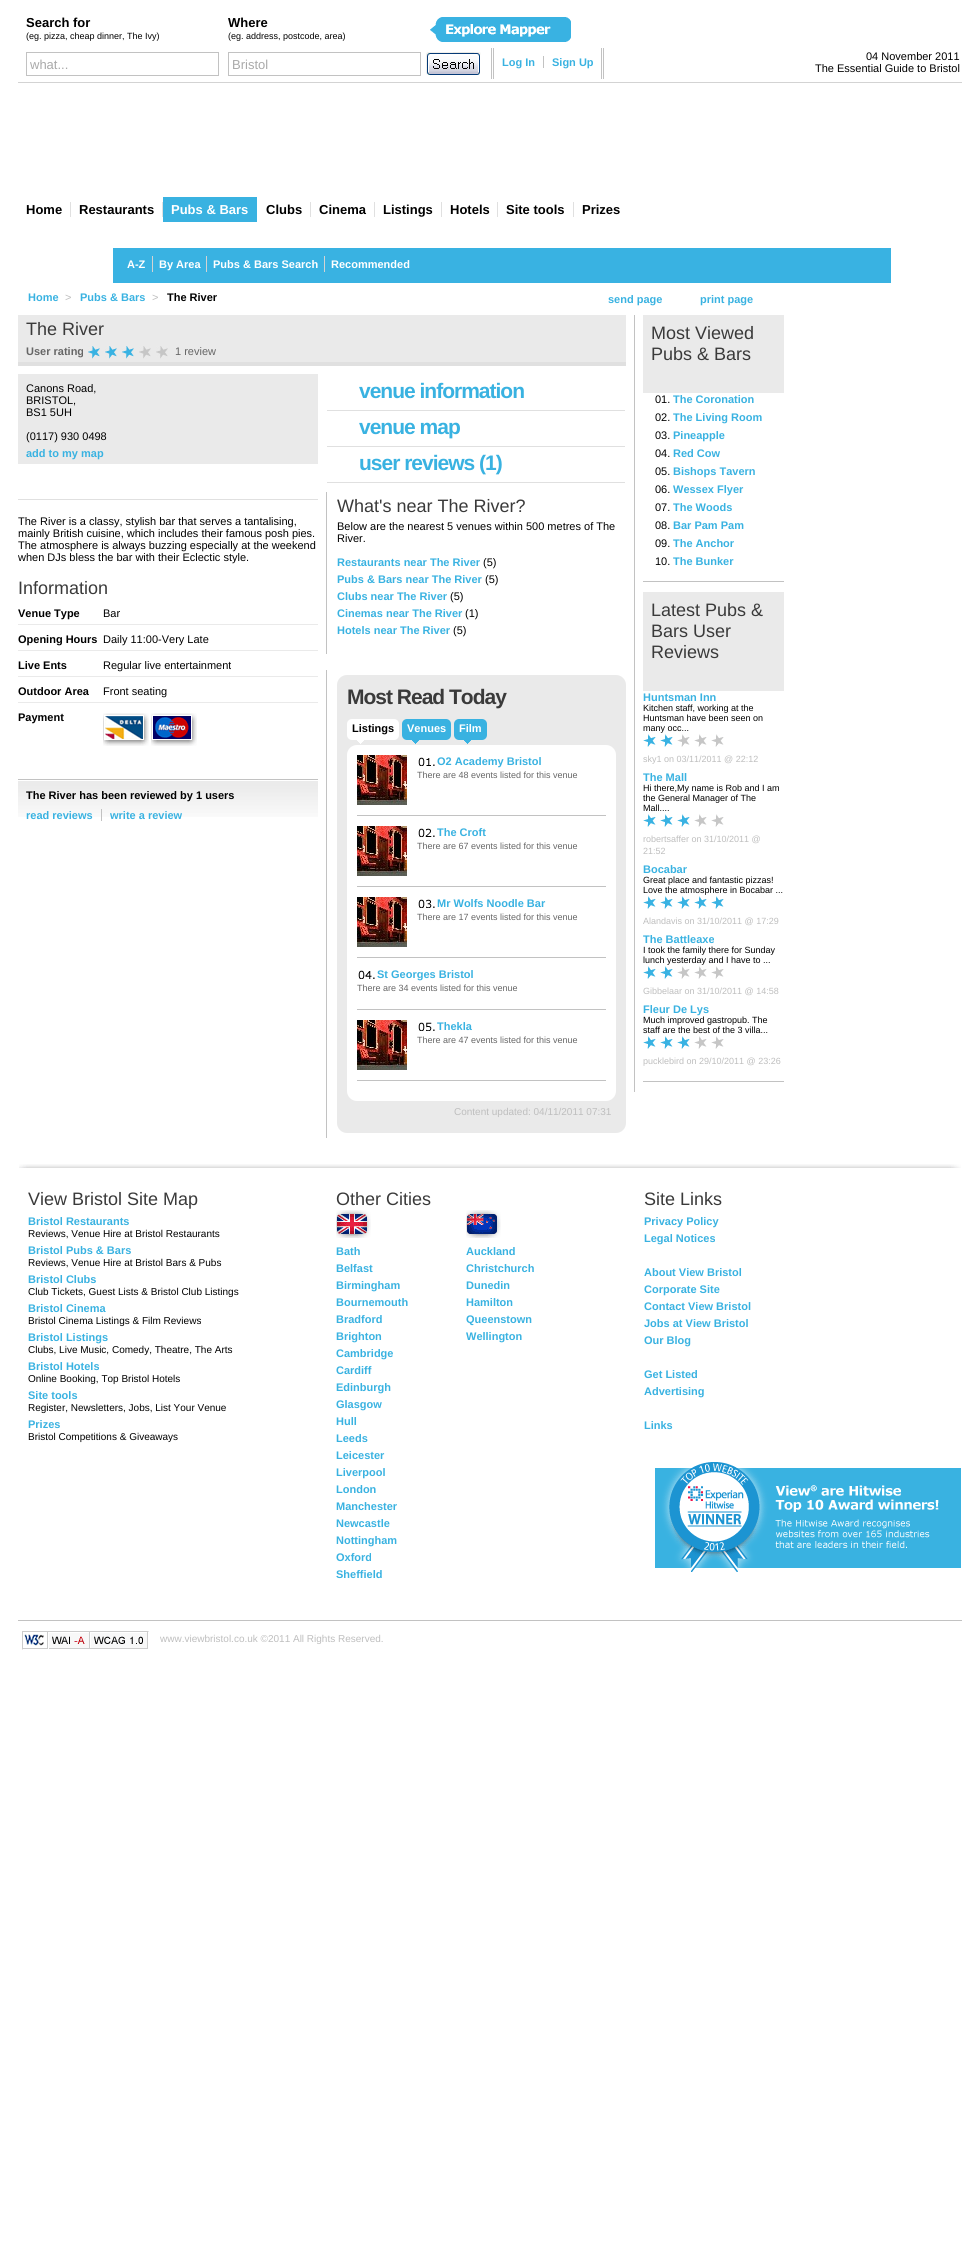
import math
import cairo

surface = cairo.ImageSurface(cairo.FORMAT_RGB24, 977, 2253)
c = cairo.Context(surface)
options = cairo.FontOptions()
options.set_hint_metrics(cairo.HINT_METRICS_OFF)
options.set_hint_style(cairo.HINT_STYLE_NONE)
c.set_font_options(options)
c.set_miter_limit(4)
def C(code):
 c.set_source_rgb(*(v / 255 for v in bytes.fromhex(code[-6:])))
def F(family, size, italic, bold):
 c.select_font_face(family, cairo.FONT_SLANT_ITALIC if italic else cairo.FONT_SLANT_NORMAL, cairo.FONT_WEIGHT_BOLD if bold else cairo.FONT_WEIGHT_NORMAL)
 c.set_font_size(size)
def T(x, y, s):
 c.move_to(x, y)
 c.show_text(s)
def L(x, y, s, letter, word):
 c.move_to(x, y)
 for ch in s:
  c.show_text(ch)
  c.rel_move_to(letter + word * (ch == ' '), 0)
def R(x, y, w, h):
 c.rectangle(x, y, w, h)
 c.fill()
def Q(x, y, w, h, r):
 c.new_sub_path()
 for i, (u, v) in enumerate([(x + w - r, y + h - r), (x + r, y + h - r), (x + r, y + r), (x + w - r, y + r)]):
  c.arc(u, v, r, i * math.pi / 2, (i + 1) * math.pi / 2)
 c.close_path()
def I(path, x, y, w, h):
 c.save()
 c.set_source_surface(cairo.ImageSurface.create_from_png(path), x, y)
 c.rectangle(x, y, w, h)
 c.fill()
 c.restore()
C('ffffff')
c.paint()
C('d3d3d3')
R(18,82,944,1)
F('Liberation Sans',13,0,1)
C('000000')
T(26,27,'Search for')
F('Liberation Sans',9,0,0)
T(26,39,'(eg. pizza, cheap dinner, The Ivy)')
F('Liberation Sans',13,0,1)
T(228,27,'Where')
F('Liberation Sans',9,0,0)
T(228,39,'(eg. address, postcode, area)')
I('1.png',430,17,141,25)
c.rectangle(26.5,52.5,192,23)
C('c2c2c2')
c.set_line_width(1)
c.stroke()
F('Liberation Sans',13,0,0)
C('a9a9a9')
T(30,69,'what...')
c.rectangle(228.5,52.5,192,23)
C('c2c2c2')
c.stroke()
C('a9a9a9')
T(232,69,'Bristol')
I('2.png',426,52,55,23)
C('c2c2c2')
R(601,48,1,31)
R(603,48,1,31)
R(491,48,1,31)
R(493,48,1,31)
F('Liberation Sans',11,0,1)
C('39b2e1')
T(502,66,'Log In')
C('c2c2c2')
R(543,56,1,12)
C('39b2e1')
T(552,66,'Sign Up')
F('Liberation Sans',11,0,0)
C('000000')
T(866,60,'04 November 2011')
T(815,72,'The Essential Guide to Bristol')
C('e0e0e0')
R(70,202,1,15)
F('Liberation Sans',13,0,1)
C('000000')
T(26,214,'Home')
C('e0e0e0')
R(162,202,1,15)
C('000000')
T(79,214,'Restaurants')
C('39b2e1')
R(163,197,94,25)
C('ffffff')
T(171,214,'Pubs & Bars')
C('e0e0e0')
R(310,202,1,15)
C('000000')
T(266,214,'Clubs')
C('e0e0e0')
R(374,202,1,15)
C('000000')
T(319,214,'Cinema')
C('e0e0e0')
R(441,202,1,15)
C('000000')
T(383,214,'Listings')
C('e0e0e0')
R(497,202,1,15)
C('000000')
T(450,214,'Hotels')
C('e0e0e0')
R(573,202,1,15)
C('000000')
T(506,214,'Site tools')
T(582,214,'Prizes')
C('39b2e2')
R(113,248,778,35)
C('d3d3d3')
R(152,256,1,16)
F('Liberation Sans',11,0,1)
C('ffffff')
T(127,268,'A-Z')
C('d3d3d3')
R(206,256,1,16)
C('ffffff')
T(159,268,'By Area')
C('d3d3d3')
R(324,256,1,16)
C('ffffff')
T(213,268,'Pubs & Bars Search')
T(331,268,'Recommended')
C('39b2e1')
T(28,301,'Home')
F('Liberation Sans',11,0,0)
C('bebebe')
T(65,301,'>')
F('Liberation Sans',11,0,1)
C('39b2e1')
T(80,301,'Pubs & Bars')
F('Liberation Sans',11,0,0)
C('bebebe')
T(152,301,'>')
F('Liberation Sans',11,0,1)
C('000000')
T(167,301,'The River')
C('39b2e1')
T(608,303,'send page')
T(700,303,'print page')
C('eaeaea')
R(18,315,608,47)
C('e0e0e0')
R(18,362,608,4)
F('Liberation Sans',18,0,0)
C('3a3a3a')
T(26,335,'The River')
F('Liberation Sans',11,0,1)
C('666666')
T(26,355,'User rating')
I('3.png',88,346,12,13)
I('3.png',105,346,12,13)
I('3.png',122,346,12,13)
I('4.png',139,346,12,13)
I('4.png',156,346,12,13)
F('Liberation Sans',11,0,0)
T(175,355,'1 review')
C('eaeaea')
R(18,374,300,90)
C('000000')
T(26,392,'Canons Road,')
T(26,404,'BRISTOL,')
T(26,416,'BS1 5UH')
T(26,440,'(0117) 930 0498')
F('Liberation Sans',11,0,1)
C('39b2e1')
T(26,457,'add to my map')
C('e0e0e0')
R(18,499,300,1)
F('Liberation Sans',11,0,0)
C('000000')
T(18,525,'The River is a classy, stylish bar that serves a tantalising,')
T(18,537,'mainly British cuisine, which includes their famous posh pies.')
T(18,549,'The atmosphere is always buzzing especially at the weekend')
T(18,561,'when DJs bless the bar with their Eclectic style.')
F('Liberation Sans',18,0,0)
C('3a3a3a')
T(18,594,'Information')
F('Liberation Sans',11,0,1)
C('000000')
T(18,617,'Venue Type')
F('Liberation Sans',11,0,0)
T(103,617,'Bar')
C('eaeaea')
R(18,624,300,1)
F('Liberation Sans',11,0,1)
C('000000')
T(18,643,'Opening Hours')
F('Liberation Sans',11,0,0)
T(103,643,'Daily 11:00-Very Late')
C('eaeaea')
R(18,650,300,1)
F('Liberation Sans',11,0,1)
C('000000')
T(18,669,'Live Ents')
F('Liberation Sans',11,0,0)
T(103,669,'Regular live entertainment')
C('eaeaea')
R(18,676,300,1)
F('Liberation Sans',11,0,1)
C('000000')
T(18,695,'Outdoor Area')
F('Liberation Sans',11,0,0)
T(103,695,'Front seating')
C('eaeaea')
R(18,702,300,1)
F('Liberation Sans',11,0,1)
C('000000')
T(18,721,'Payment')
I('5.png',103,713,46,33)
I('6.png',151,713,46,33)
C('c2c2c2')
R(18,779,300,1)
I('7.png',18,781,300,36)
C('000000')
T(26,799,'The River has been reviewed by 1 users')
C('c2c2c2')
R(101,809,1,12)
C('39b2e1')
T(26,819,'read reviews')
T(110,819,'write a review')
C('e0e0e0')
R(327,410,298,1)
F('Liberation Sans',21,0,1)
C('39b2e1')
L(359,398,'venue information',-1,0)
C('e0e0e0')
R(327,446,298,1)
C('39b2e1')
L(359,434,'venue map',-1,0)
C('e0e0e0')
R(327,482,298,1)
C('39b2e1')
L(359,470,'user reviews (1)',-1,0)
C('c2c2c2')
R(326,492,1,162)
F('Liberation Sans',18,0,0)
C('3a3a3a')
T(337,512,'What\'s near The River?')
F('Liberation Sans',11,0,0)
C('000000')
T(337,530,'Below are the nearest 5 venues within 500 metres of The')
T(337,542,'River.')
F('Liberation Sans',11,0,1)
C('39b2e1')
T(337,566,'Restaurants near The River')
F('Liberation Sans',11,0,0)
C('000000')
T(483,566,'(5)')
F('Liberation Sans',11,0,1)
C('39b2e1')
T(337,583,'Pubs & Bars near The River')
F('Liberation Sans',11,0,0)
C('000000')
T(485,583,'(5)')
F('Liberation Sans',11,0,1)
C('39b2e1')
T(337,600,'Clubs near The River')
F('Liberation Sans',11,0,0)
C('000000')
T(450,600,'(5)')
F('Liberation Sans',11,0,1)
C('39b2e1')
T(337,617,'Cinemas near The River')
F('Liberation Sans',11,0,0)
C('000000')
T(465,617,'(1)')
F('Liberation Sans',11,0,1)
C('39b2e1')
T(337,634,'Hotels near The River')
F('Liberation Sans',11,0,0)
C('000000')
T(453,634,'(5)')
C('c2c2c2')
R(326,670,1,468)
C('eaeaea')
Q(337,675,289,458,10)
c.fill()
F('Liberation Sans',21,0,1)
C('3a3a3a')
L(347,704,'Most Read Today',-1,0)
C('ffffff')
Q(347,719,52,21,5)
c.fill()
F('Liberation Sans',11,0,1)
C('000000')
T(352,732,'Listings')
I('8.png',357,740,7,4)
C('39b2e1')
Q(402,719,49,21,5)
c.fill()
C('ffffff')
T(407,732,'Venues')
I('9.png',412,740,7,4)
C('39b2e1')
Q(454,719,33,21,5)
c.fill()
C('ffffff')
T(459,732,'Film')
I('9.png',464,740,7,4)
Q(347,745,269,356,10)
c.fill()
C('c2c2c2')
R(357,815,249,1)
I('10.png',357,755,50,50)
I('11.png',418,757,17,9)
C('39b2e1')
T(437,765,'O2 Academy Bristol')
F('Liberation Sans',9,0,0)
C('666666')
T(417,778,'There are 48 events listed for this venue')
C('c2c2c2')
R(357,886,249,1)
I('10.png',357,826,50,50)
I('12.png',418,828,17,9)
F('Liberation Sans',11,0,1)
C('39b2e1')
T(437,836,'The Croft')
F('Liberation Sans',9,0,0)
C('666666')
T(417,849,'There are 67 events listed for this venue')
C('c2c2c2')
R(357,957,249,1)
I('10.png',357,897,50,50)
I('13.png',418,899,17,9)
F('Liberation Sans',11,0,1)
C('39b2e1')
T(437,907,'Mr Wolfs Noodle Bar')
F('Liberation Sans',9,0,0)
C('666666')
T(417,920,'There are 17 events listed for this venue')
C('c2c2c2')
R(357,1009,249,1)
I('14.png',358,970,17,9)
F('Liberation Sans',11,0,1)
C('39b2e1')
T(377,978,'St Georges Bristol')
F('Liberation Sans',9,0,0)
C('666666')
T(357,991,'There are 34 events listed for this venue')
C('c2c2c2')
R(357,1080,249,1)
I('10.png',357,1020,50,50)
I('15.png',418,1022,17,9)
F('Liberation Sans',11,0,1)
C('39b2e1')
T(437,1030,'Thekla')
F('Liberation Sans',9,0,0)
C('666666')
T(417,1043,'There are 47 events listed for this venue')
F('Liberation Sans',10,0,0)
C('bebebe')
T(454,1115,'Content updated: 04/11/2011 07:31')
C('c2c2c2')
R(634,315,1,777)
C('eaeaea')
R(643,315,141,78)
F('Liberation Sans',18,0,0)
C('3a3a3a')
T(651,339,'Most Viewed')
T(651,360,'Pubs & Bars')
C('c2c2c2')
R(643,581,141,1)
F('Liberation Sans',11,0,0)
C('000000')
T(655,403,'01.')
F('Liberation Sans',11,0,1)
C('39b2e1')
T(673,403,'The Coronation')
F('Liberation Sans',11,0,0)
C('000000')
T(655,421,'02.')
F('Liberation Sans',11,0,1)
C('39b2e1')
T(673,421,'The Living Room')
F('Liberation Sans',11,0,0)
C('000000')
T(655,439,'03.')
F('Liberation Sans',11,0,1)
C('39b2e1')
T(673,439,'Pineapple')
F('Liberation Sans',11,0,0)
C('000000')
T(655,457,'04.')
F('Liberation Sans',11,0,1)
C('39b2e1')
T(673,457,'Red Cow')
F('Liberation Sans',11,0,0)
C('000000')
T(655,475,'05.')
F('Liberation Sans',11,0,1)
C('39b2e1')
T(673,475,'Bishops Tavern')
F('Liberation Sans',11,0,0)
C('000000')
T(655,493,'06.')
F('Liberation Sans',11,0,1)
C('39b2e1')
T(673,493,'Wessex Flyer')
F('Liberation Sans',11,0,0)
C('000000')
T(655,511,'07.')
F('Liberation Sans',11,0,1)
C('39b2e1')
T(673,511,'The Woods')
F('Liberation Sans',11,0,0)
C('000000')
T(655,529,'08.')
F('Liberation Sans',11,0,1)
C('39b2e1')
T(673,529,'Bar Pam Pam')
F('Liberation Sans',11,0,0)
C('000000')
T(655,547,'09.')
F('Liberation Sans',11,0,1)
C('39b2e1')
T(673,547,'The Anchor')
F('Liberation Sans',11,0,0)
C('000000')
T(655,565,'10.')
F('Liberation Sans',11,0,1)
C('39b2e1')
T(673,565,'The Bunker')
C('eaeaea')
R(643,592,141,99)
F('Liberation Sans',18,0,0)
C('3a3a3a')
T(651,616,'Latest Pubs &')
T(651,637,'Bars User')
T(651,658,'Reviews')
C('c2c2c2')
R(643,1081,141,1)
F('Liberation Sans',11,0,1)
C('39b2e1')
T(643,701,'Huntsman Inn')
F('Liberation Sans',9,0,0)
C('000000')
T(643,711,'Kitchen staff, working at the')
T(643,721,'Huntsman have been seen on')
T(643,731,'many occ...')
I('16.png',643,734,13,13)
I('16.png',660,734,13,13)
I('17.png',677,734,13,13)
I('17.png',694,734,13,13)
I('17.png',711,734,13,13)
C('bebebe')
T(643,762,'sky1 on 03/11/2011 @ 22:12')
F('Liberation Sans',11,0,1)
C('39b2e1')
T(643,781,'The Mall')
F('Liberation Sans',9,0,0)
C('000000')
T(643,791,'Hi there,My name is Rob and I am')
T(643,801,'the General Manager of The')
T(643,811,'Mall....')
I('16.png',643,814,13,13)
I('16.png',660,814,13,13)
I('16.png',677,814,13,13)
I('17.png',694,814,13,13)
I('17.png',711,814,13,13)
C('bebebe')
T(643,842,'robertsaffer on 31/10/2011 @')
T(643,854,'21:52')
F('Liberation Sans',11,0,1)
C('39b2e1')
T(643,873,'Bocabar')
F('Liberation Sans',9,0,0)
C('000000')
T(643,883,'Great place and fantastic pizzas!')
T(643,893,'Love the atmosphere in Bocabar ...')
I('16.png',643,896,13,13)
I('16.png',660,896,13,13)
I('16.png',677,896,13,13)
I('16.png',694,896,13,13)
I('16.png',711,896,13,13)
C('bebebe')
T(643,924,'Alandavis on 31/10/2011 @ 17:29')
F('Liberation Sans',11,0,1)
C('39b2e1')
T(643,943,'The Battleaxe')
F('Liberation Sans',9,0,0)
C('000000')
T(643,953,'I took the family there for Sunday')
T(643,963,'lunch yesterday and I have to ...')
I('16.png',643,966,13,13)
I('16.png',660,966,13,13)
I('17.png',677,966,13,13)
I('17.png',694,966,13,13)
I('17.png',711,966,13,13)
C('bebebe')
T(643,994,'Gibbelaar on 31/10/2011 @ 14:58')
F('Liberation Sans',11,0,1)
C('39b2e1')
T(643,1013,'Fleur De Lys')
F('Liberation Sans',9,0,0)
C('000000')
T(643,1023,'Much improved gastropub. The')
T(643,1033,'staff are the best of the 3 villa...')
I('16.png',643,1036,13,13)
I('16.png',660,1036,13,13)
I('16.png',677,1036,13,13)
I('17.png',694,1036,13,13)
I('17.png',711,1036,13,13)
C('bebebe')
T(643,1064,'pucklebird on 29/10/2011 @ 23:26')
I('18.png',19,1164,942,4)
F('Liberation Sans',18,0,0)
C('3a3a3a')
T(28,1205,'View Bristol Site Map')
F('Liberation Sans',11,0,1)
C('39b2e1')
T(28,1225,'Bristol Restaurants')
F('Liberation Sans',10,0,0)
C('000000')
T(28,1237,'Reviews, Venue Hire at Bristol Restaurants')
F('Liberation Sans',11,0,1)
C('39b2e1')
T(28,1254,'Bristol Pubs & Bars')
F('Liberation Sans',10,0,0)
C('000000')
T(28,1266,'Reviews, Venue Hire at Bristol Bars & Pubs')
F('Liberation Sans',11,0,1)
C('39b2e1')
T(28,1283,'Bristol Clubs')
F('Liberation Sans',10,0,0)
C('000000')
T(28,1295,'Club Tickets, Guest Lists & Bristol Club Listings')
F('Liberation Sans',11,0,1)
C('39b2e1')
T(28,1312,'Bristol Cinema')
F('Liberation Sans',10,0,0)
C('000000')
T(28,1324,'Bristol Cinema Listings & Film Reviews')
F('Liberation Sans',11,0,1)
C('39b2e1')
T(28,1341,'Bristol Listings')
F('Liberation Sans',10,0,0)
C('000000')
T(28,1353,'Clubs, Live Music, Comedy, Theatre, The Arts')
F('Liberation Sans',11,0,1)
C('39b2e1')
T(28,1370,'Bristol Hotels')
F('Liberation Sans',10,0,0)
C('000000')
T(28,1382,'Online Booking, Top Bristol Hotels')
F('Liberation Sans',11,0,1)
C('39b2e1')
T(28,1399,'Site tools')
F('Liberation Sans',10,0,0)
C('000000')
T(28,1411,'Register, Newsletters, Jobs, List Your Venue')
F('Liberation Sans',11,0,1)
C('39b2e1')
T(28,1428,'Prizes')
F('Liberation Sans',10,0,0)
C('000000')
T(28,1440,'Bristol Competitions & Giveaways')
F('Liberation Sans',18,0,0)
C('3a3a3a')
T(336,1205,'Other Cities')
I('19.png',336,1210,35,28)
F('Liberation Sans',11,0,1)
C('39b2e1')
T(336,1255,'Bath')
T(336,1272,'Belfast')
T(336,1289,'Birmingham')
T(336,1306,'Bournemouth')
T(336,1323,'Bradford')
T(336,1340,'Brighton')
T(336,1357,'Cambridge')
T(336,1374,'Cardiff')
T(336,1391,'Edinburgh')
T(336,1408,'Glasgow')
T(336,1425,'Hull')
T(336,1442,'Leeds')
T(336,1459,'Leicester')
T(336,1476,'Liverpool')
T(336,1493,'London')
T(336,1510,'Manchester')
T(336,1527,'Newcastle')
T(336,1544,'Nottingham')
T(336,1561,'Oxford')
T(336,1578,'Sheffield')
I('20.png',466,1210,35,28)
T(466,1255,'Auckland')
T(466,1272,'Christchurch')
T(466,1289,'Dunedin')
T(466,1306,'Hamilton')
T(466,1323,'Queenstown')
T(466,1340,'Wellington')
F('Liberation Sans',18,0,0)
C('3a3a3a')
T(644,1205,'Site Links')
F('Liberation Sans',11,0,1)
C('39b2e1')
T(644,1225,'Privacy Policy')
T(644,1242,'Legal Notices')
T(644,1276,'About View Bristol')
T(644,1293,'Corporate Site')
T(644,1310,'Contact View Bristol')
T(644,1327,'Jobs at View Bristol')
T(644,1344,'Our Blog')
T(644,1378,'Get Listed')
T(644,1395,'Advertising')
T(644,1429,'Links')
I('21.png',655,1462,306,110)
C('c2c2c2')
R(18,1620,944,1)
I('22.png',22,1631,127,19)
F('Liberation Sans',10,0,0)
C('bebebe')
T(160,1642,'www.viewbristol.co.uk ©2011 All Rights Reserved.')
surface.write_to_png('o.png')
